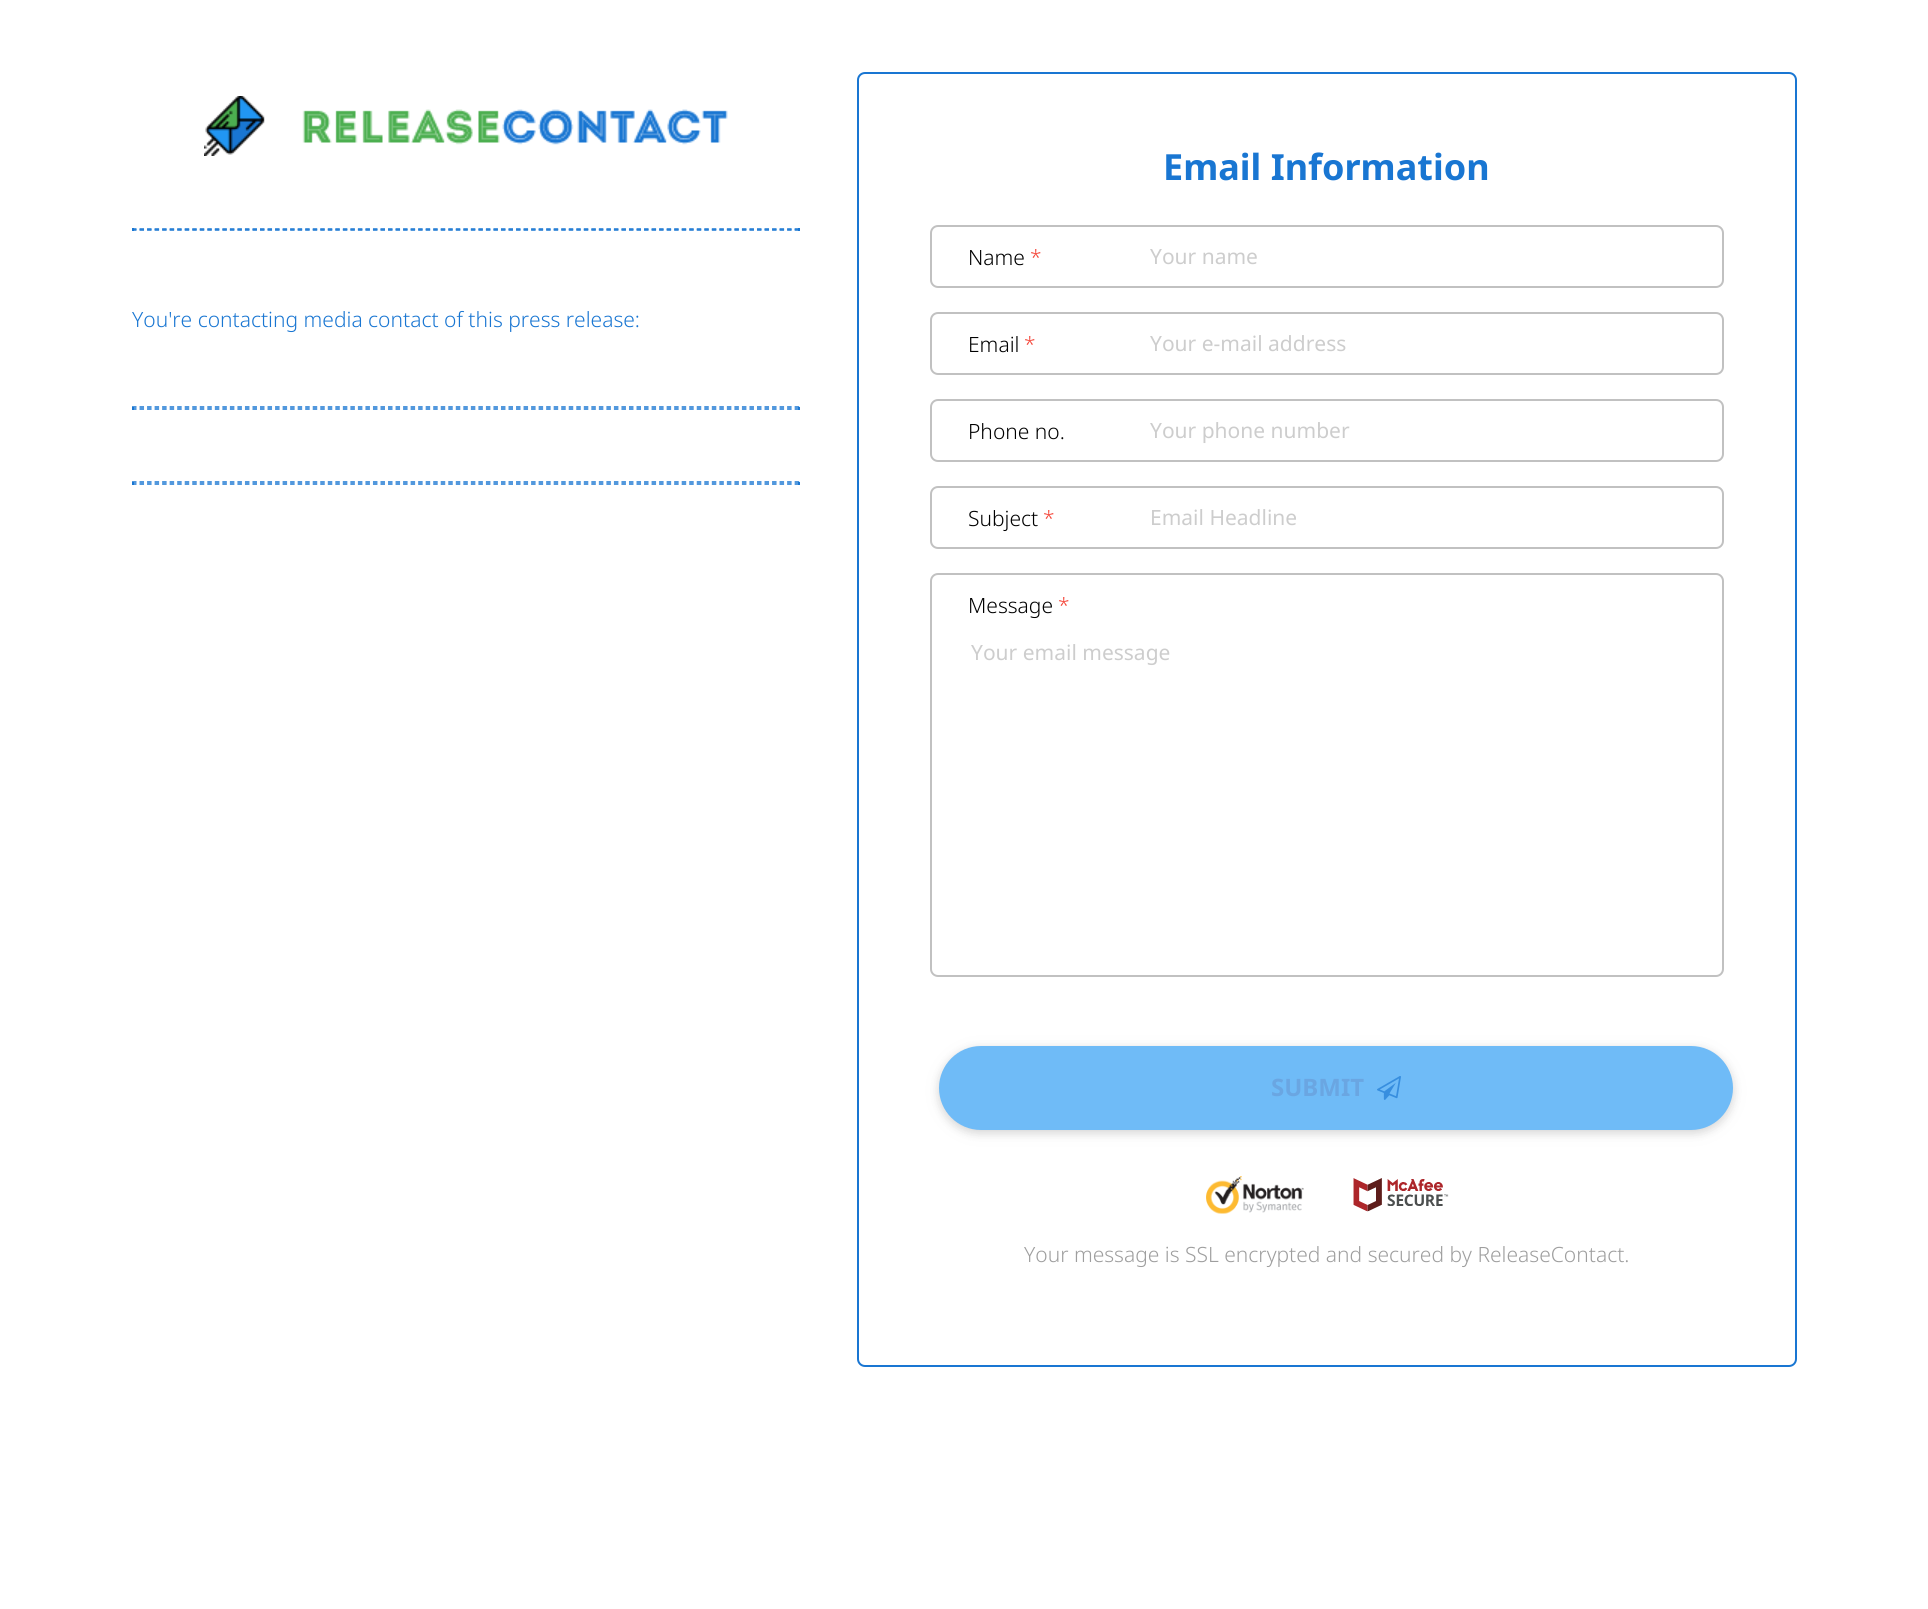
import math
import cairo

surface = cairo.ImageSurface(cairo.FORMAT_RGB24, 1928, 1609)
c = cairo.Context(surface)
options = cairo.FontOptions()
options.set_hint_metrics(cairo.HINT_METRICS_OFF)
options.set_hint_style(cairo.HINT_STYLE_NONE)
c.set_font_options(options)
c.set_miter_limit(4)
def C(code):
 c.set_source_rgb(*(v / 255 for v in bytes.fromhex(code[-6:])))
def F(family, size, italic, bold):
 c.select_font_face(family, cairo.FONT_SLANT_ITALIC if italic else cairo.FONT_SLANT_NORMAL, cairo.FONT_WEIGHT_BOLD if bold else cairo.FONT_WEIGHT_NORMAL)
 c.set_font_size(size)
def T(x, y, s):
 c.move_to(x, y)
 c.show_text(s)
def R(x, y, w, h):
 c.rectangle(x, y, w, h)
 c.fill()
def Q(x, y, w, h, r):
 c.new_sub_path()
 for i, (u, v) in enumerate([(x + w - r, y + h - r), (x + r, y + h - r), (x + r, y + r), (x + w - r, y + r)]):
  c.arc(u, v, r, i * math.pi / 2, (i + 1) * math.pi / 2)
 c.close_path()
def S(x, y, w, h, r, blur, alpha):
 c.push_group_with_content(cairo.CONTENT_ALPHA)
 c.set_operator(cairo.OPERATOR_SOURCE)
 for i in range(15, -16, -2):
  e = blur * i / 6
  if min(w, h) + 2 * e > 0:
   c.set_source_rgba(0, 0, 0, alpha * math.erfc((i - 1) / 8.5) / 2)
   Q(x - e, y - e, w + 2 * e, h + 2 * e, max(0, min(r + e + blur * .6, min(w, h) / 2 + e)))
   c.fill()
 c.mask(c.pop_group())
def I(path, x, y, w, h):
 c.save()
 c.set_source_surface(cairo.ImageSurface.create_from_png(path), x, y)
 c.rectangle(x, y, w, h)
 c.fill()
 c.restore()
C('ffffff')
c.paint()
I('1.png',204,96,524,60)
c.new_path()
c.move_to(132,229)
c.line_to(799.5,229)
C('1976d2')
c.set_line_width(1.5)
c.set_dash([4.5,3.03])
c.stroke()
R(798,228,2,3)
c.new_path()
c.move_to(132,230)
c.line_to(799.5,230)
c.stroke()
R(132,228,2,3)
F('Noto Sans Light',21,0,0)
T(132,327,'You\'re contacting media contact of this press release:')
c.new_path()
c.move_to(132,407)
c.line_to(799.5,407)
c.stroke()
R(798,407,2,3)
c.new_path()
c.move_to(132,409)
c.line_to(799.5,409)
c.stroke()
R(132,407,2,3)
c.new_path()
c.move_to(132,482)
c.line_to(799.5,482)
c.stroke()
R(798,482,2,3)
c.new_path()
c.move_to(132,484)
c.line_to(799.5,484)
c.stroke()
R(132,482,2,3)
Q(858,73,938,1293,7)
c.set_line_width(2)
c.set_dash([])
c.stroke()
F('Noto Sans',36,0,1)
T(1163,180,'Email Information')
Q(931,226,792,61,7)
C('c1c1c1')
c.stroke()
F('Noto Sans Light',21,0,0)
C('000000')
T(968,265,'Name')
C('f44336')
T(1030,265,'*')
F('Noto Sans',21,0,0)
C('cdcdcd')
T(1150,264,'Your name')
Q(931,313,792,61,7)
C('c1c1c1')
c.stroke()
F('Noto Sans Light',21,0,0)
C('000000')
T(968,352,'Email')
C('f44336')
T(1024,352,'*')
F('Noto Sans',21,0,0)
C('cdcdcd')
T(1150,351,'Your e-mail address')
Q(931,400,792,61,7)
C('c1c1c1')
c.stroke()
F('Noto Sans Light',21,0,0)
C('000000')
T(968,439,'Phone no.')
F('Noto Sans',21,0,0)
C('cdcdcd')
T(1150,438,'Your phone number')
Q(931,487,792,61,7)
C('c1c1c1')
c.stroke()
F('Noto Sans Light',21,0,0)
C('000000')
T(968,526,'Subject')
C('f44336')
T(1043,526,'*')
F('Noto Sans',21,0,0)
C('cdcdcd')
T(1150,525,'Email Headline')
Q(931,574,792,402,7)
C('c1c1c1')
c.stroke()
F('Noto Sans Light',21,0,0)
C('000000')
T(968,613,'Message')
C('f44336')
T(1058,613,'*')
F('Noto Sans',21,0,0)
C('cdcdcd')
T(971,660,'Your email message')
C('595959')
S(939,1049,794,84,42,7.5,.12)
S(939,1049,794,84,42,4,.16)
C('6fbbf7')
Q(939,1046,794,84,42)
c.fill()
F('Noto Sans',24,0,1)
C('6aa6e2')
T(1271,1096,'SUBMIT')
I('2.png',1377,1076,24,24)
I('3.png',1206,1176,98,38)
I('4.png',1353,1178,96,34)
F('Noto Sans Light',21,0,0)
C('9e9e9e')
T(1024,1262,'Your message is SSL encrypted and secured by ReleaseContact.')
surface.write_to_png('o.png')
